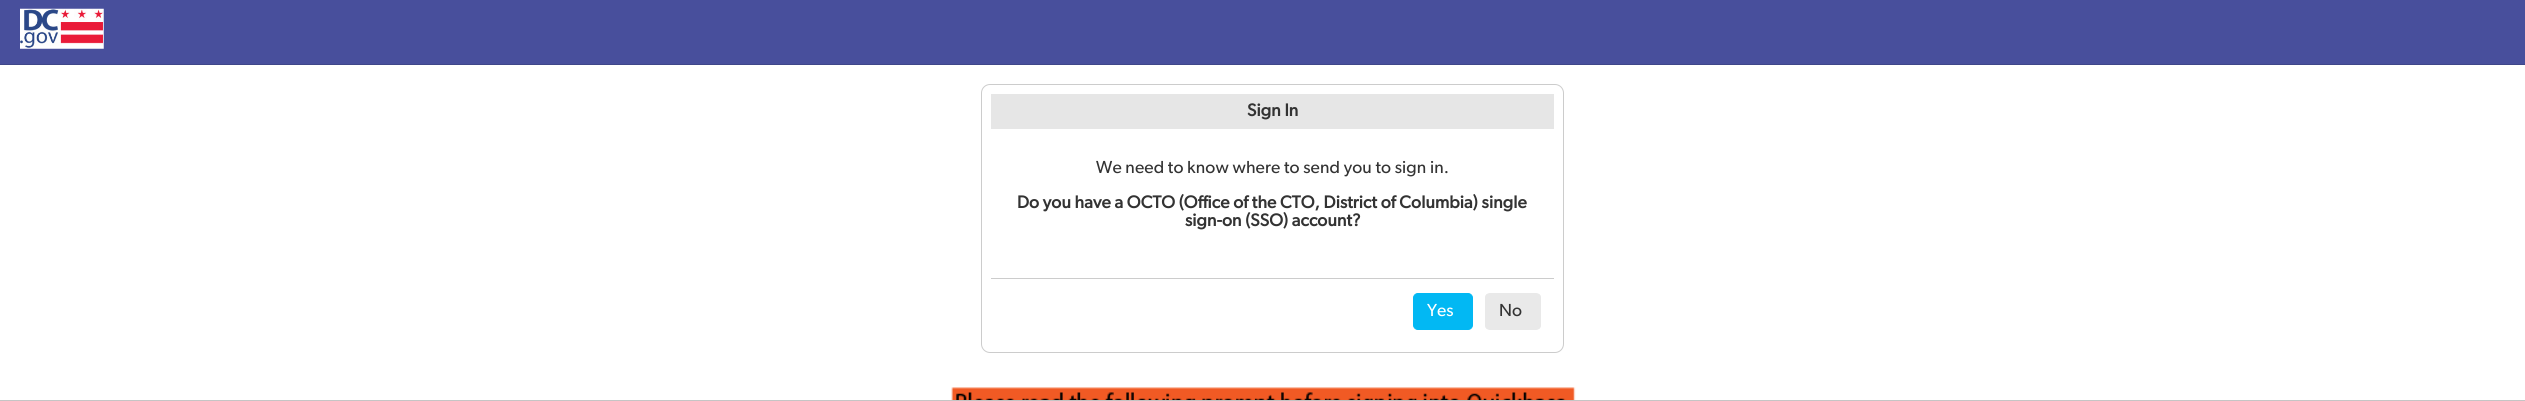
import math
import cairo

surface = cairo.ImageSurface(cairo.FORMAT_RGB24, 2525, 401)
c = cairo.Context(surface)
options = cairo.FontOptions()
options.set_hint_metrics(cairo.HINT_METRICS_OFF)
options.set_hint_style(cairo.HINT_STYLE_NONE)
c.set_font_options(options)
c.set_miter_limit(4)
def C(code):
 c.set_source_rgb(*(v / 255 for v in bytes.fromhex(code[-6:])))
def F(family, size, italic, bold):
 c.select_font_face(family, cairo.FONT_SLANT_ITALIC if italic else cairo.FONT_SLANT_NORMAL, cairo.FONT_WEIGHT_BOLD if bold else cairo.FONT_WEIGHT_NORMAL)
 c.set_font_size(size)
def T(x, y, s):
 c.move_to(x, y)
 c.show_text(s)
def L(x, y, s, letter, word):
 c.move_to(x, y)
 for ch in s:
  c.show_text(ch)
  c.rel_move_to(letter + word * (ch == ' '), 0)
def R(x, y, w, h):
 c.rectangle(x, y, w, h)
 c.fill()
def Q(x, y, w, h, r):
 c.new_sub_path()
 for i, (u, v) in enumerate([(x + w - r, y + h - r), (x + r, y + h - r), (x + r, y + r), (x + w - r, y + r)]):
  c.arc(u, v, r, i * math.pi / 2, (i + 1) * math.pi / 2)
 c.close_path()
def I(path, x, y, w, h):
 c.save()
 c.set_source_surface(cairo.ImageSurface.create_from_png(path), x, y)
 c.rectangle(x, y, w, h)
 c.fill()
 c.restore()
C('ffffff')
c.paint()
C('484f9c')
R(0,0,2525,64)
C('3f4689')
R(0,64,2525,1)
I('1.png',20,8,84,41)
Q(981.5,84.5,582,268,8.5)
C('cccccc')
c.set_line_width(1)
c.stroke()
C('e6e6e6')
R(991,94,563,35)
F('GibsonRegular',17.5,0,1)
C('333333')
L(1247,116,'Sign In',.12,0)
F('GibsonRegular',17.5,0,0)
L(1096,173,'We need to know where to send you to sign in.',.12,0)
F('GibsonRegular',17.5,0,1)
L(1017,208,'Do you have a OCTO (Office of the CTO, District of Columbia) single',.12,0)
L(1185,226,'sign-on (SSO) account?',.12,0)
C('cccccc')
R(991,278,563,1)
C('02b8f3')
Q(1413.5,293.5,59,36,4.5)
c.fill_preserve()
c.stroke()
F('GibsonRegular',17.5,0,0)
C('ffffff')
T(1427,316,'Yes')
c.save()
Q(1485,293,56,37,5)
c.clip()
C('e9e9e9')
R(1485,294,56,35)
c.restore()
Q(1485.5,293.5,55,36,4.5)
C('e9e9e9')
c.stroke()
C('333333')
T(1499,316,'No')
I('2.png',951,387,625,13)
C('c5c5c5')
R(0,400,2525,1)
surface.write_to_png('o.png')
